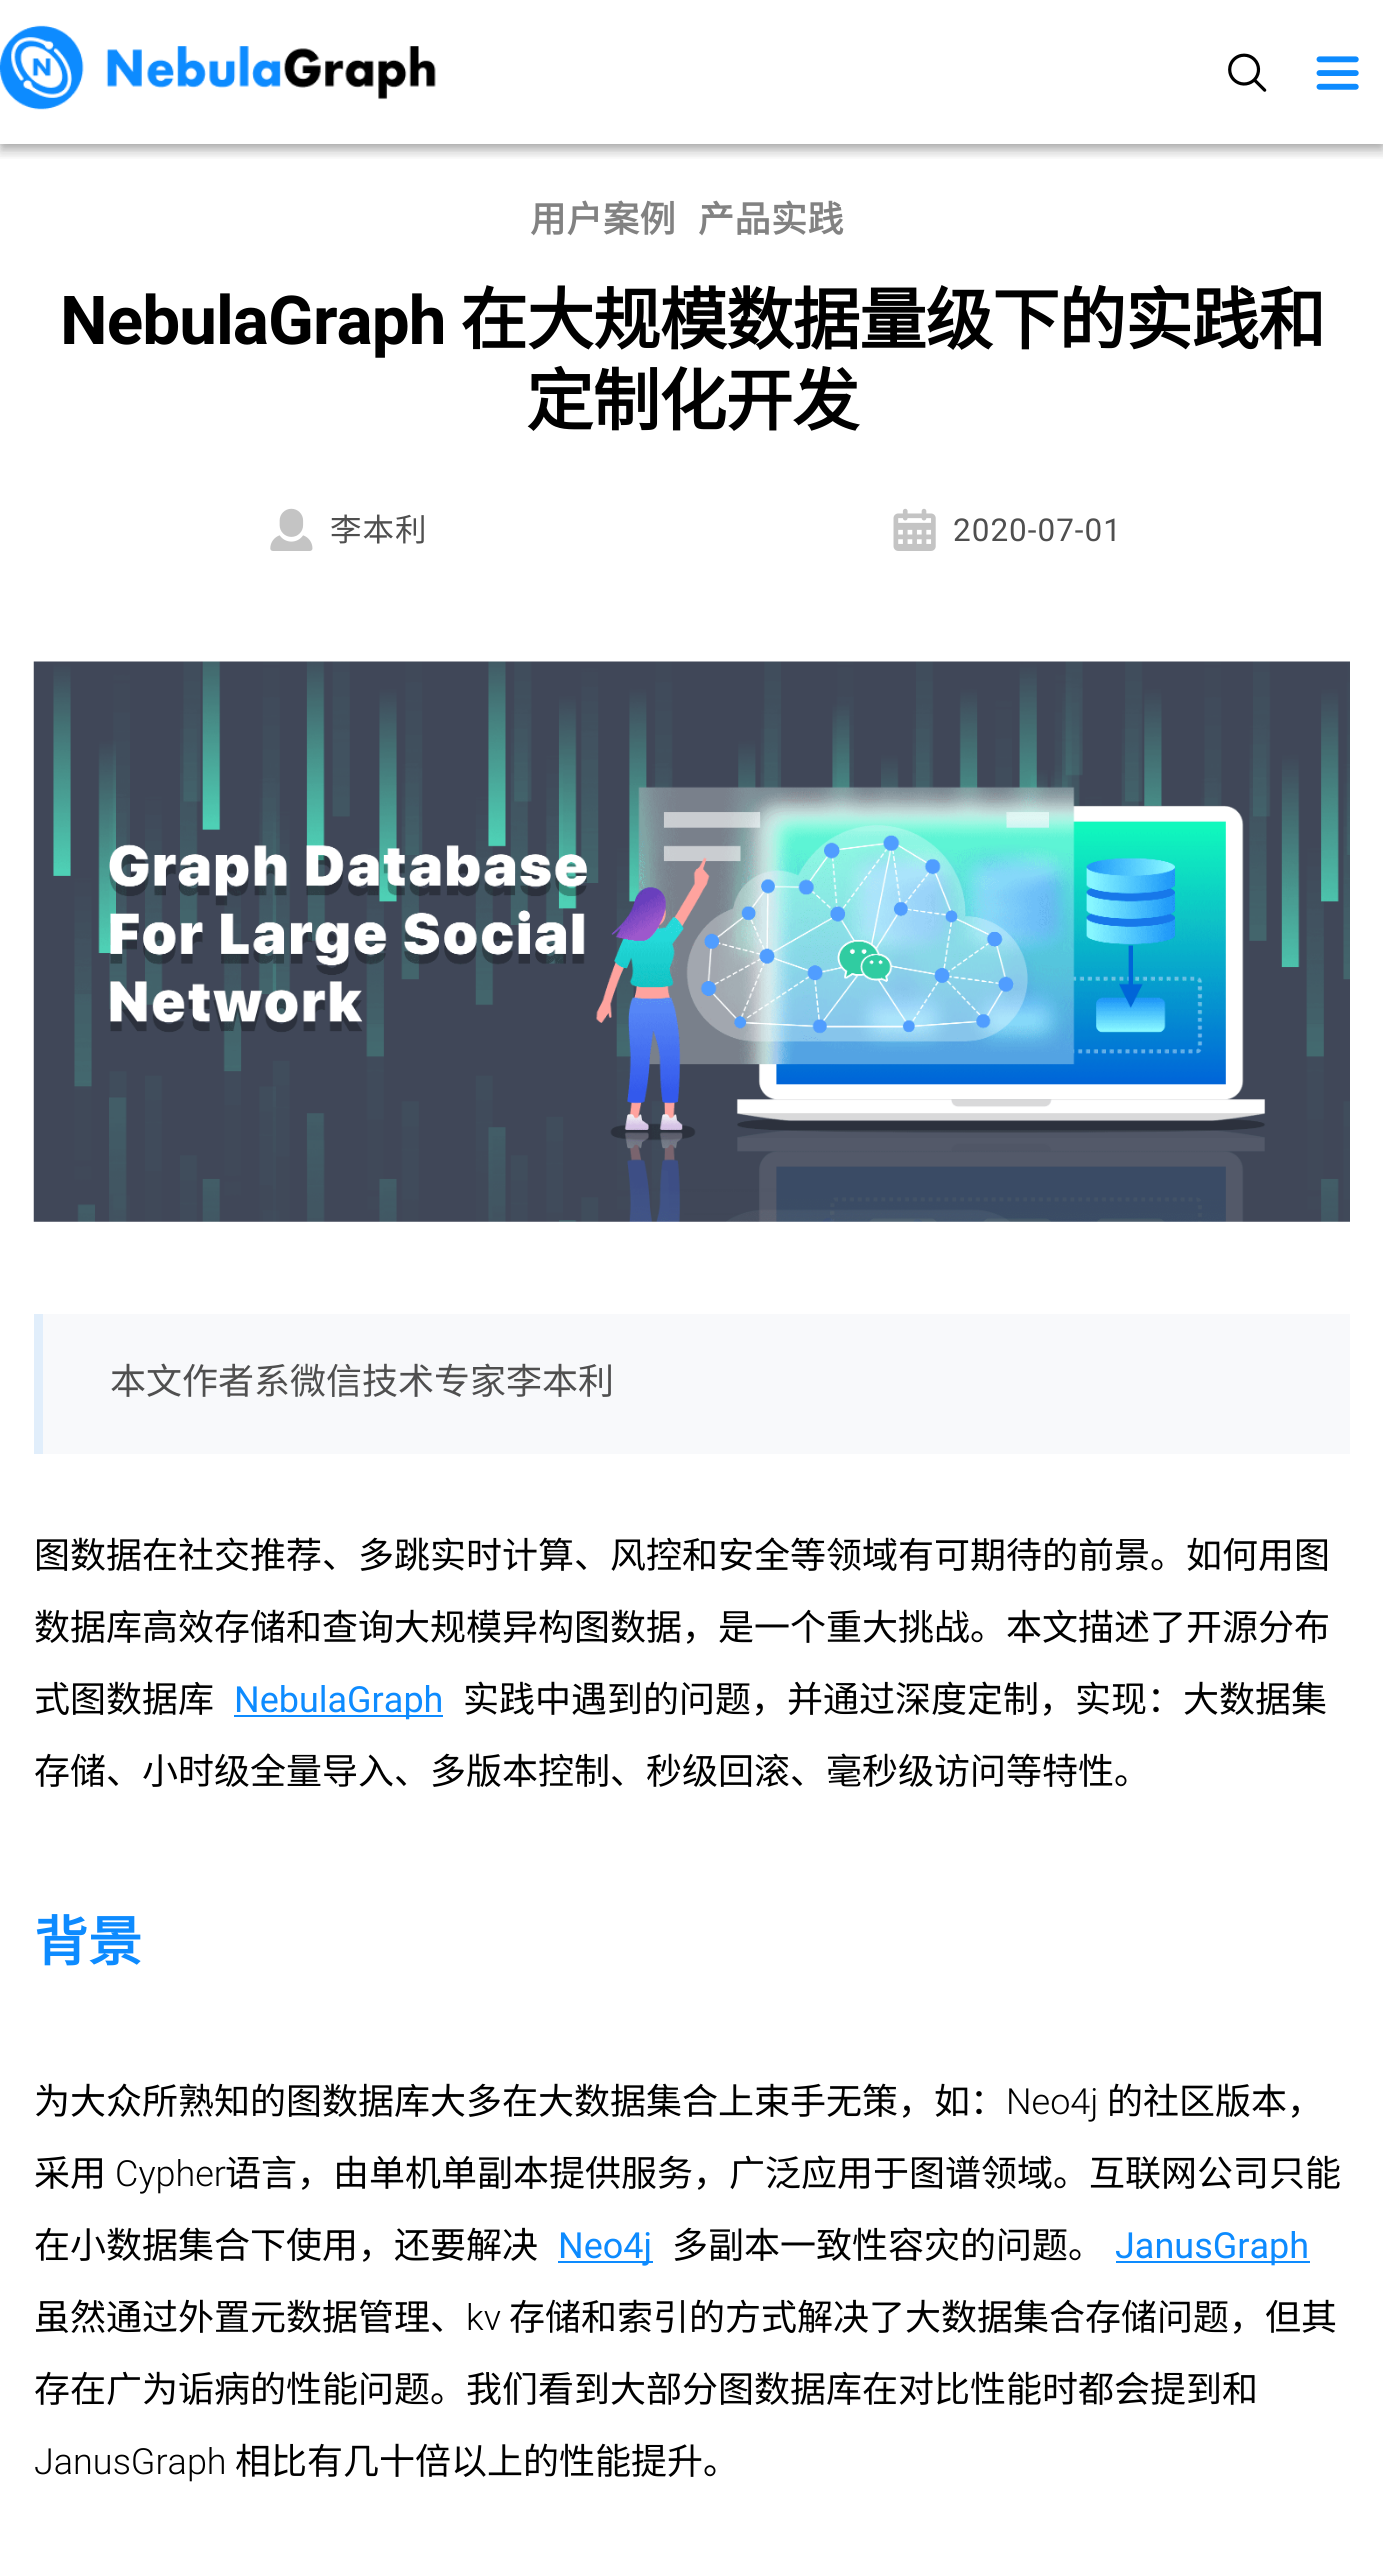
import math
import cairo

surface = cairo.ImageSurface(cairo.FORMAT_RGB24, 1383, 2566)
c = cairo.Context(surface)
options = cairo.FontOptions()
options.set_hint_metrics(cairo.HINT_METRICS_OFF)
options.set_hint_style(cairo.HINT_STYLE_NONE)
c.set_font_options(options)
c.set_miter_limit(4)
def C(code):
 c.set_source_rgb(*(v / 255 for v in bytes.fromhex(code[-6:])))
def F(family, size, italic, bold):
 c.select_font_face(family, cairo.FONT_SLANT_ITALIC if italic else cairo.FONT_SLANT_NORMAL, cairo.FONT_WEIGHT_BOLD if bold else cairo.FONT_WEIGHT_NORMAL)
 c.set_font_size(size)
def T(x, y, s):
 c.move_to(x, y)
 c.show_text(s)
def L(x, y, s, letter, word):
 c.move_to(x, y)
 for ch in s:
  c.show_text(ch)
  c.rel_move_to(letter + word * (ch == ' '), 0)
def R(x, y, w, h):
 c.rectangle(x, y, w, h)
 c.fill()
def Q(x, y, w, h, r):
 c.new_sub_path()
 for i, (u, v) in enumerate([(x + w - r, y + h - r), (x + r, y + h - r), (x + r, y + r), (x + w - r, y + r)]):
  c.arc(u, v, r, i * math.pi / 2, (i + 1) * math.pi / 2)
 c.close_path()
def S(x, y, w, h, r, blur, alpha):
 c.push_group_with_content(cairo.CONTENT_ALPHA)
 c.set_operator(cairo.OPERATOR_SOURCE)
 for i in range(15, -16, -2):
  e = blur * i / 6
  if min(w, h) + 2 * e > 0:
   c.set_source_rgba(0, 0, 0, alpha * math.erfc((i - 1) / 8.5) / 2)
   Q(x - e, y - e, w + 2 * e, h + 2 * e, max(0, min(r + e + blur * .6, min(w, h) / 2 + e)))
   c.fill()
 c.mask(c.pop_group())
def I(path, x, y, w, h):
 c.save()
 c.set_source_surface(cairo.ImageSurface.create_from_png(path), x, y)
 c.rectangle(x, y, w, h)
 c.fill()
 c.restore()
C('ffffff')
c.paint()
c.save()
c.rectangle(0,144,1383,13)
c.clip()
C('000000')
S(0,2,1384,144,0,11,.12)
c.restore()
c.save()
c.rectangle(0,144,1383,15)
c.clip()
C('000000')
S(0,9,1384,144,0,5.5,.14)
c.restore()
c.save()
c.rectangle(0,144,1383,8)
c.clip()
C('000000')
S(2,7,1380,139,0,4.5,.2)
c.restore()
I('1.png',0,25,436,85)
I('2.png',1228,53,39,39)
I('3.png',1316,56,43,34)
F('Noto Sans CJK SC',36,0,1)
C('828282')
L(530,232,'用户案例',.5,0)
L(698,232,'产品实践',.5,0)
F('Roboto',67.5,0,1)
C('000000')
L(60,344,'NebulaGraph',-1,0)
F('Noto Sans CJK SC',67.5,0,1)
L(460,344,'在大规模数据量级下的实践和',-1,0)
L(526,425,'定制化开发',-1,0)
I('4.png',270,508,43,43)
F('Noto Sans CJK SC',31.5,0,0)
C('4f4f4f')
L(330,541,'李本利',1,0)
I('5.png',893,508,43,43)
F('Roboto',31.5,0,0)
L(953,541,'2020-07-01',1,0)
I('6.png',33,661,1317,561)
C('f8f9fb')
R(43,1314,1307,140)
C('e1eefb')
R(34,1314,9,140)
F('Noto Sans CJK SC',36,0,0)
C('4f4f4f')
T(110,1394,'本文作者系微信技术专家李本利')
C('000000')
T(34,1568,'图数据在社交推荐、多跳实时计算、风控和安全等领域有可期待的前景。如何用图')
T(34,1640,'数据库高效存储和查询大规模异构图数据，是一个重大挑战。本文描述了开源分布')
T(34,1712,'式图数据库')
C('0d8bff')
R(234,1715,209,2)
F('Roboto',36,0,0)
T(234,1712,'NebulaGraph')
F('Noto Sans CJK SC',36,0,0)
C('000000')
T(463,1712,'实践中遇到的问题，并通过深度定制，实现：大数据集')
T(34,1784,'存储、小时级全量导入、多版本控制、秒级回滚、毫秒级访问等特性。')
F('Noto Sans CJK SC',54,0,1)
C('0d8bff')
T(34,1961,'背景')
F('Noto Sans CJK SC',36,0,0)
C('000000')
T(34,2114,'为大众所熟知的图数据库大多在大数据集合上束手无策，如：')
F('Roboto Light',36,0,0)
T(1006,2114,'Neo4j')
F('Noto Sans CJK SC',36,0,0)
T(1107,2114,'的社区版本，')
T(34,2186,'采用')
F('Roboto Light',36,0,0)
T(115,2186,'Cypher')
F('Noto Sans CJK SC',36,0,0)
T(225,2186,'语言，由单机单副本提供服务，广泛应用于图谱领域。互联网公司只能')
T(34,2258,'在小数据集合下使用，还要解决')
C('0d8bff')
R(558,2261,95,2)
F('Roboto',36,0,0)
T(558,2258,'Neo4j')
F('Noto Sans CJK SC',36,0,0)
C('000000')
T(672,2258,'多副本一致性容灾的问题。')
C('0d8bff')
R(1116,2261,194,2)
F('Roboto',36,0,0)
T(1115,2258,'JanusGraph')
F('Noto Sans CJK SC',36,0,0)
C('000000')
T(34,2330,'虽然通过外置元数据管理、')
F('Roboto Light',36,0,0)
T(466,2330,'kv')
F('Noto Sans CJK SC',36,0,0)
T(509,2330,'存储和索引的方式解决了大数据集合存储问题，但其')
T(34,2402,'存在广为诟病的性能问题。我们看到大部分图数据库在对比性能时都会提到和')
F('Roboto Light',36,0,0)
T(34,2474,'JanusGraph')
F('Noto Sans CJK SC',36,0,0)
T(235,2474,'相比有几十倍以上的性能提升。')
surface.write_to_png('o.png')
